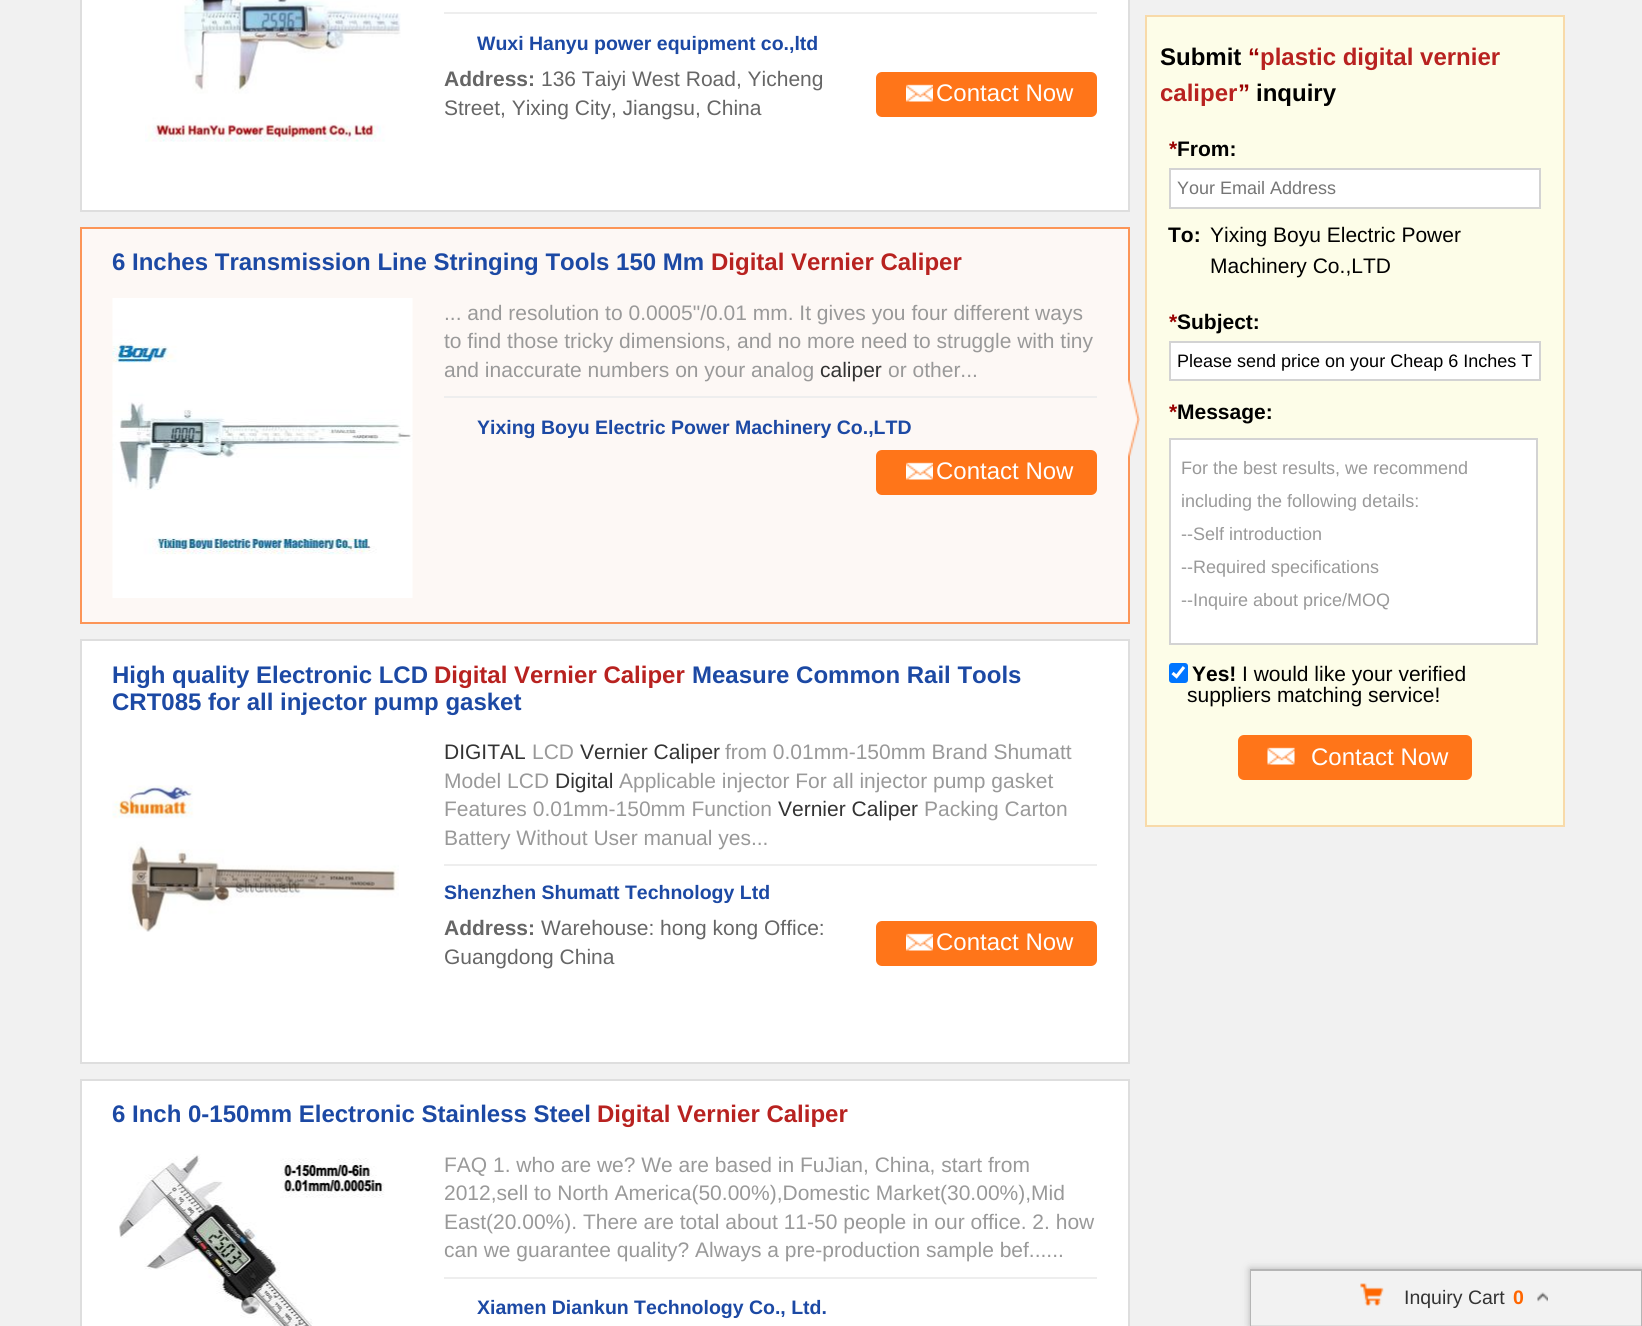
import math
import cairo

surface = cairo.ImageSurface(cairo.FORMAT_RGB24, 1642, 1326)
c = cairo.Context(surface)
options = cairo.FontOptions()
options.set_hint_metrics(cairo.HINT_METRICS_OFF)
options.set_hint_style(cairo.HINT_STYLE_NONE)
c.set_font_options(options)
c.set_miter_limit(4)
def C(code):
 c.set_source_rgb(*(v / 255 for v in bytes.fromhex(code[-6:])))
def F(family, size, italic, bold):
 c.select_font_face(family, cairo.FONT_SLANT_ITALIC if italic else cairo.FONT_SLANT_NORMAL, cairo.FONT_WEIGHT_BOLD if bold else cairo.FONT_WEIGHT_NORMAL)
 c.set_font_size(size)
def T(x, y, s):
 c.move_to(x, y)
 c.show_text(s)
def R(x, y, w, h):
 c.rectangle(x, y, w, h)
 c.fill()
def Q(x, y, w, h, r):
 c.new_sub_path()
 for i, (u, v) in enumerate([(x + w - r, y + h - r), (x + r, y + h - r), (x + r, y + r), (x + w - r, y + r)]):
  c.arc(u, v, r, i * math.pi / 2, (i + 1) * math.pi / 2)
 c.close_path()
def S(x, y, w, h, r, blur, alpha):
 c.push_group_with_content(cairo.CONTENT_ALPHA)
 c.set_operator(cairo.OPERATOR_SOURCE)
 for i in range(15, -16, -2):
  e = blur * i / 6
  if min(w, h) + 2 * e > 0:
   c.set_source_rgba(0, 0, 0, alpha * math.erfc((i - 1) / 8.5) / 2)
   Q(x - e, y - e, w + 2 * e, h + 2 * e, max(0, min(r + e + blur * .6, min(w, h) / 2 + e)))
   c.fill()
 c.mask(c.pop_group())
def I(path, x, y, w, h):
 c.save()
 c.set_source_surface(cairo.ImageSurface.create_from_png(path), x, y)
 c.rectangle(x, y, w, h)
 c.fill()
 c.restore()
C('f1f1f1')
c.paint()
C('ffffff')
c.rectangle(81,-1,1048,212)
c.fill_preserve()
C('dedede')
c.stroke()
I('1.png',145,0,256,142)
C('eeeeee')
R(444,12,653,2)
F('Liberation Sans',19.5,0,1)
C('1c49a4')
T(477,50,'Wuxi Hanyu power equipment co.,ltd')
F('Liberation Sans',21,0,1)
C('666666')
T(444,86,'Address:')
F('Liberation Sans',21,0,0)
T(541,86,'136 Taiyi West Road, Yicheng')
T(444,115,'Street, Yixing City, Jiangsu, China')
C('ff7519')
Q(876,72,221,45,6)
c.fill()
I('2.png',906,84,27,18)
F('Liberation Sans',24,0,0)
C('ffffff')
T(936,101,'Contact Now')
C('fdf8f5')
c.rectangle(81,228,1048,395)
c.fill_preserve()
C('fc9557')
c.stroke()
F('Liberation Sans',24,0,1)
C('1c49a4')
T(112,270,'6 Inches Transmission Line Stringing Tools 150 Mm')
C('b82220')
T(711,270,'Digital Vernier Caliper')
I('3.png',112,298,301,300)
C('eeeeee')
R(444,396,653,2)
F('Liberation Sans',21,0,0)
C('999999')
T(444,320,'... and resolution to 0.0005"/0.01 mm. It gives you four different ways')
T(444,348,'to find those tricky dimensions, and no more need to struggle with tiny')
T(444,377,'and inaccurate numbers on your analog')
C('333333')
T(820,377,'caliper')
C('999999')
T(888,377,'or other...')
F('Liberation Sans',19.5,0,1)
C('1c49a4')
T(477,434,'Yixing Boyu Electric Power Machinery Co.,LTD')
C('ff7519')
Q(876,450,221,45,6)
c.fill()
I('2.png',906,462,27,18)
F('Liberation Sans',24,0,0)
C('ffffff')
T(936,479,'Contact Now')
I('4.png',1128,380,12,77)
c.rectangle(81,640,1048,423)
c.fill_preserve()
C('dedede')
c.stroke()
F('Liberation Sans',24,0,1)
C('1c49a4')
T(112,683,'High quality Electronic LCD')
C('b82220')
T(434,683,'Digital Vernier Caliper')
C('1c49a4')
T(692,683,'Measure Common Rail Tools')
T(112,710,'CRT085 for all injector pump gasket')
I('5.png',112,785,287,147)
C('eeeeee')
R(444,864,653,2)
F('Liberation Sans',21,0,0)
C('333333')
T(444,759,'DIGITAL')
C('999999')
T(532,759,'LCD')
C('333333')
T(580,759,'Vernier Caliper')
C('999999')
T(725,759,'from 0.01mm-150mm Brand Shumatt')
T(444,788,'Model LCD')
C('333333')
T(555,788,'Digital')
C('999999')
T(619,788,'Applicable injector For all injector pump gasket')
T(444,816,'Features 0.01mm-150mm Function')
C('333333')
T(778,816,'Vernier Caliper')
C('999999')
T(924,816,'Packing Carton')
T(444,845,'Battery Without User manual yes...')
F('Liberation Sans',19.5,0,1)
C('1c49a4')
T(444,899,'Shenzhen Shumatt Technology Ltd')
F('Liberation Sans',21,0,1)
C('666666')
T(444,935,'Address:')
F('Liberation Sans',21,0,0)
T(541,935,'Warehouse: hong kong Office:')
T(444,964,'Guangdong China')
C('ff7519')
Q(876,921,221,45,6)
c.fill()
I('2.png',906,933,27,18)
F('Liberation Sans',24,0,0)
C('ffffff')
T(936,950,'Contact Now')
c.rectangle(81,1080,1048,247)
c.fill_preserve()
C('dedede')
c.stroke()
F('Liberation Sans',24,0,1)
C('1c49a4')
T(112,1122,'6 Inch 0-150mm Electronic Stainless Steel')
C('b82220')
T(597,1122,'Digital Vernier Caliper')
I('6.png',119,1154,266,172)
C('eeeeee')
R(444,1277,653,2)
F('Liberation Sans',21,0,0)
C('999999')
T(444,1172,'FAQ 1. who are we? We are based in FuJian, China, start from')
T(444,1200,'2012,sell to North America(50.00%),Domestic Market(30.00%),Mid')
T(444,1229,'East(20.00%). There are total about 11-50 people in our office. 2. how')
T(444,1257,'can we guarantee quality? Always a pre-production sample bef......')
F('Liberation Sans',19.5,0,1)
C('1c49a4')
T(477,1314,'Xiamen Diankun Technology Co., Ltd.')
C('fdfde8')
c.rectangle(1146,16,418,810)
c.fill_preserve()
C('f8daa9')
c.stroke()
F('Liberation Sans',24,0,1)
C('000000')
T(1160,65,'Submit')
C('990100')
T(1248,65,'“')
C('b82220')
T(1260,65,'plastic digital vernier')
T(1160,101,'caliper')
C('990100')
T(1238,101,'”')
C('000000')
T(1256,101,'inquiry')
F('Liberation Sans',21,0,1)
C('990100')
T(1169,156,'*')
C('000000')
T(1177,156,'From:')
C('ffffff')
c.rectangle(1170,169,370,39)
c.fill_preserve()
C('d3d3d3')
c.stroke()
F('Liberation Sans',18,0,0)
C('757575')
T(1177,194,'Your Email Address')
F('Liberation Sans',21,0,1)
C('000000')
T(1168,242,'To:')
F('Liberation Sans',21,0,0)
T(1210,242,'Yixing Boyu Electric Power')
T(1210,273,'Machinery Co.,LTD')
F('Liberation Sans',21,0,1)
C('990100')
T(1169,329,'*')
C('000000')
T(1177,329,'Subject:')
C('ffffff')
c.rectangle(1170,342,370,38)
c.fill_preserve()
C('d3d3d3')
c.stroke()
F('Liberation Sans',18,0,0)
C('000000')
T(1177,367,'Please send price on your Cheap 6 Inches T')
F('Liberation Sans',21,0,1)
C('990100')
T(1169,419,'*')
C('000000')
T(1177,419,'Message:')
C('ffffff')
c.rectangle(1170,439,367,205)
c.fill_preserve()
C('d3d3d3')
c.stroke()
F('Liberation Sans',18,0,0)
C('999999')
T(1181,474,'For the best results, we recommend')
T(1181,507,'including the following details:')
T(1181,540,'--Self introduction')
T(1181,573,'--Required specifications')
T(1181,606,'--Inquire about price/MOQ')
C('0075ff')
Q(1169,663,19,20,3)
c.fill()
c.new_path()
c.move_to(1172.5,673)
c.line_to(1176.5,676.5)
c.line_to(1184,667)
C('ffffff')
c.set_line_width(3.1)
c.stroke()
F('Liberation Sans',21,0,1)
C('000000')
T(1192,681,'Yes!')
F('Liberation Sans',21,0,0)
T(1242,681,'I would like your verified')
T(1187,702,'suppliers matching service!')
C('ff7519')
Q(1238,735,234,45,6)
c.fill()
I('7.png',1267,747,28,18)
F('Liberation Sans',24,0,0)
C('ffffff')
T(1311,765,'Contact Now')
C('b5b5b5')
S(1250,1269,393,57,0,4,1)
C('b5b5b5')
R(1250,1269,392,2)
R(1641,1269,1,57)
R(1250,1269,2,57)
C('f2f2f2')
R(1251,1271,390,54)
C('dedede')
R(1251,1325,390,1)
I('8.png',1360,1283,24,23)
F('Liberation Sans',19.5,0,0)
C('333333')
T(1404,1304,'Inquiry Cart')
F('Liberation Sans',19.5,0,1)
C('ff6600')
T(1513,1304,'0')
I('9.png',1537,1292,11,10)
surface.write_to_png('o.png')
